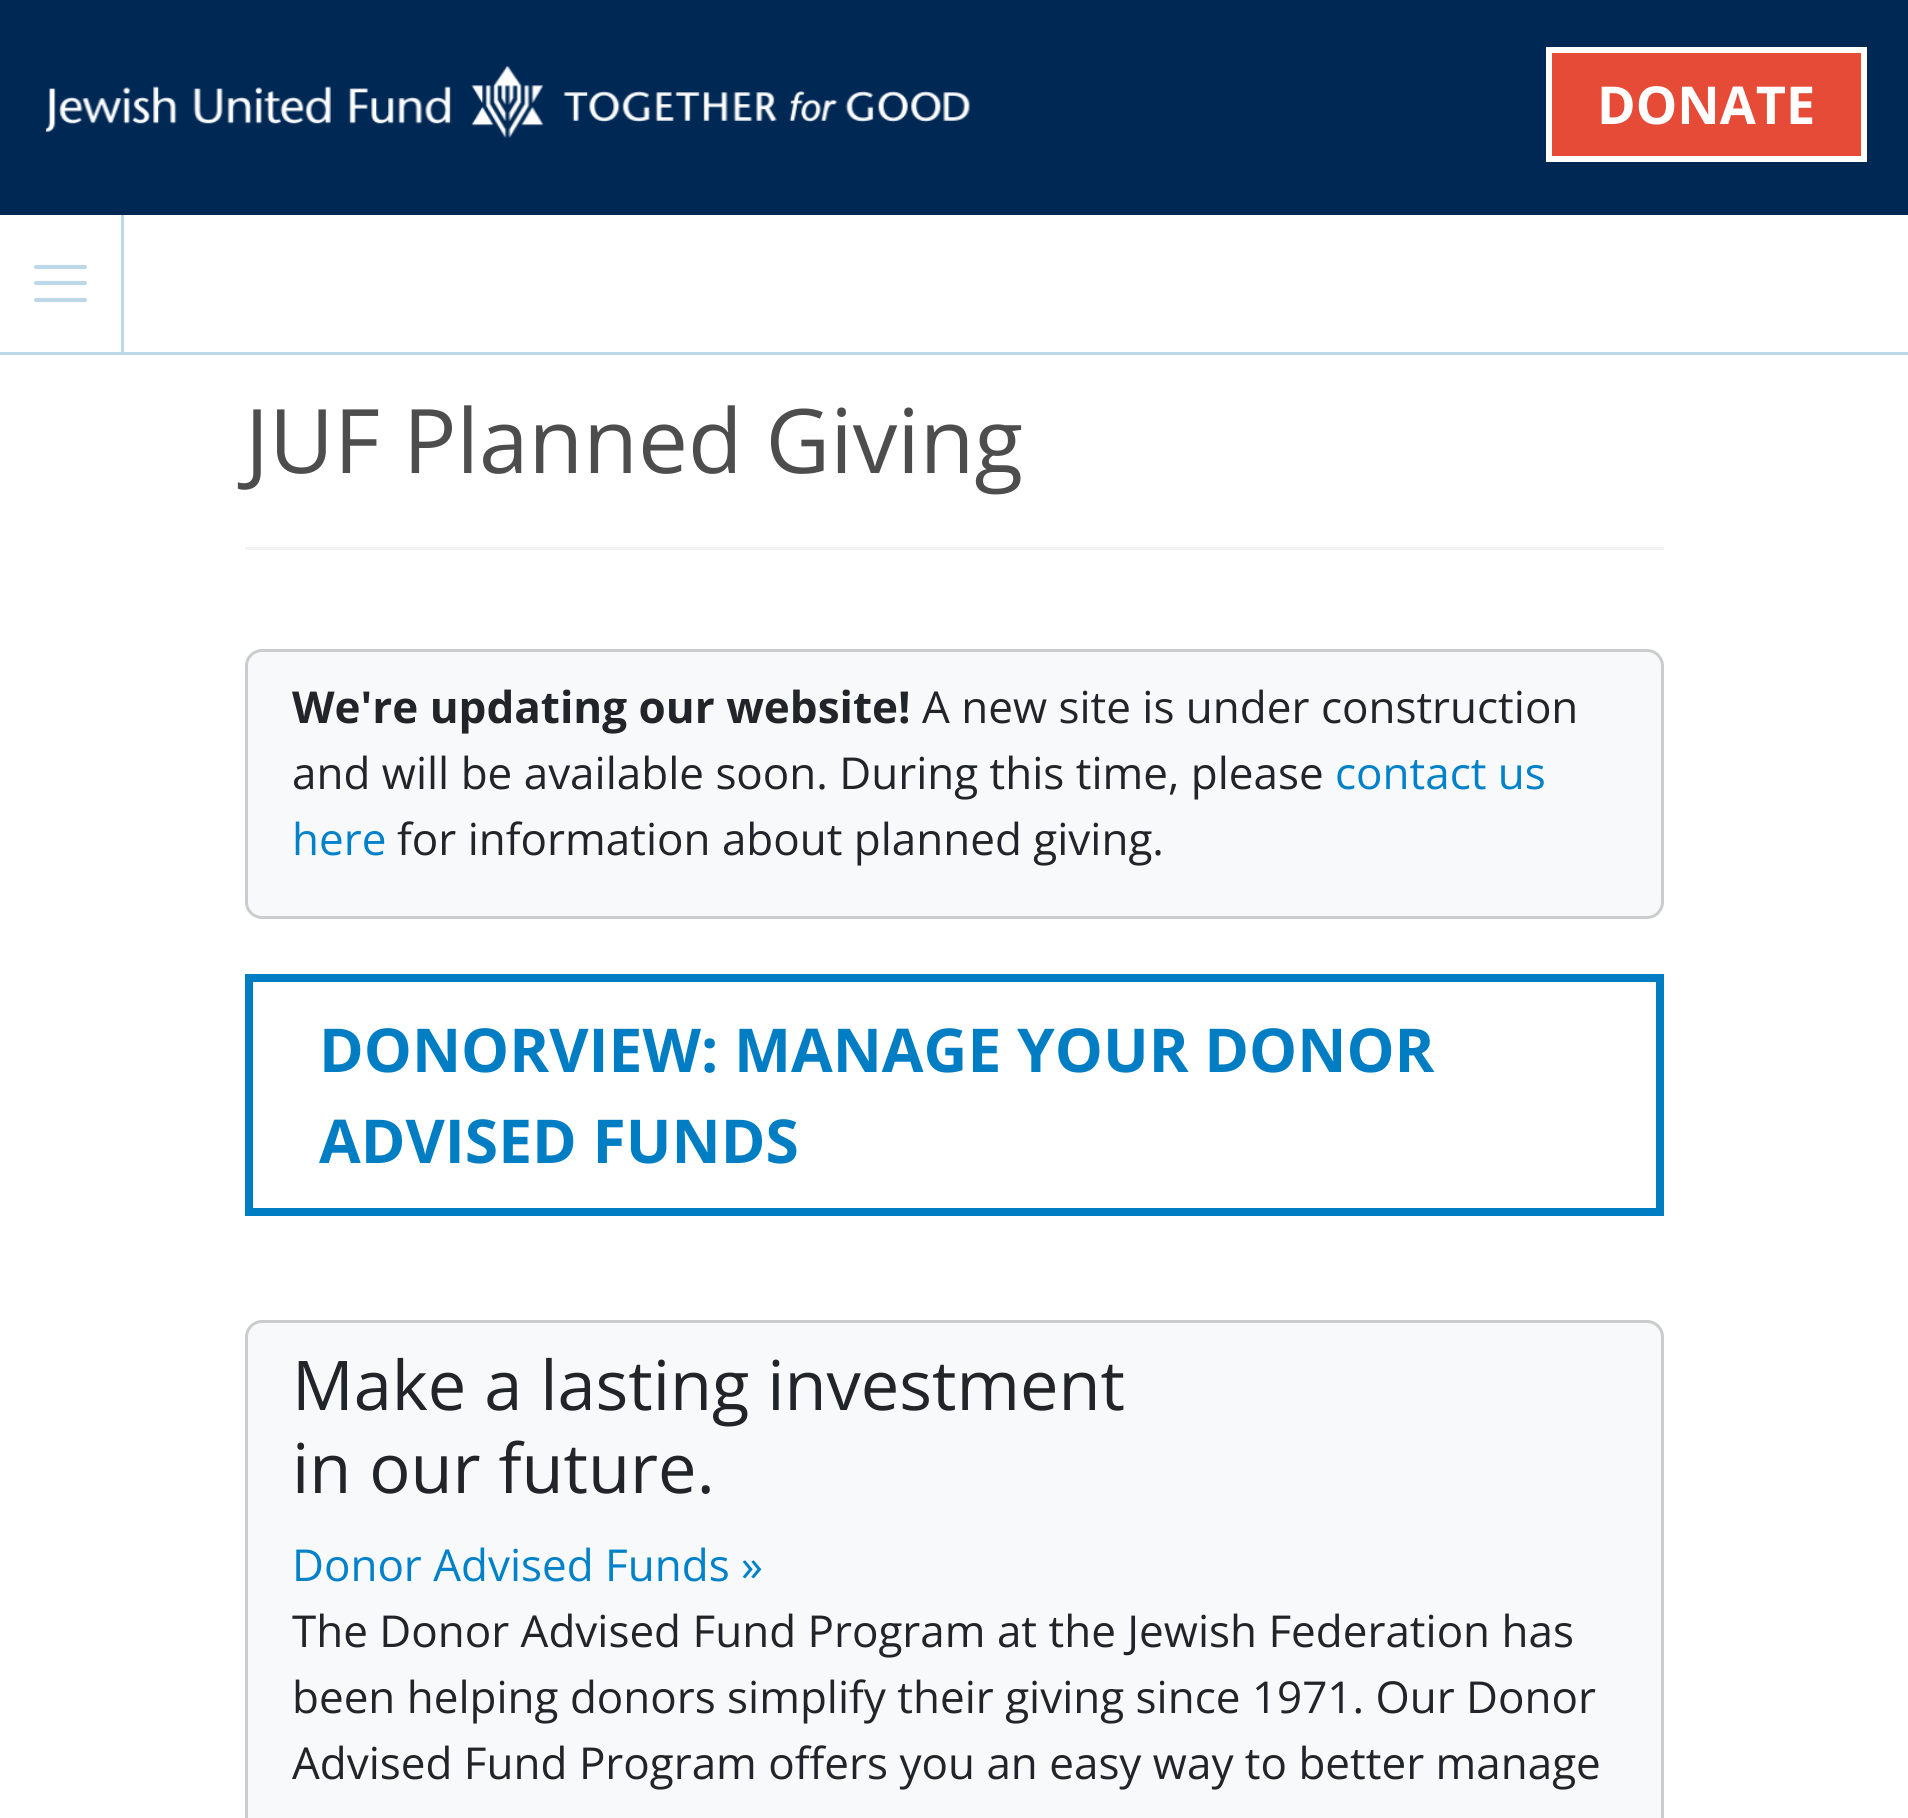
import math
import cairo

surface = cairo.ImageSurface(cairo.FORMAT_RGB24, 1908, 1818)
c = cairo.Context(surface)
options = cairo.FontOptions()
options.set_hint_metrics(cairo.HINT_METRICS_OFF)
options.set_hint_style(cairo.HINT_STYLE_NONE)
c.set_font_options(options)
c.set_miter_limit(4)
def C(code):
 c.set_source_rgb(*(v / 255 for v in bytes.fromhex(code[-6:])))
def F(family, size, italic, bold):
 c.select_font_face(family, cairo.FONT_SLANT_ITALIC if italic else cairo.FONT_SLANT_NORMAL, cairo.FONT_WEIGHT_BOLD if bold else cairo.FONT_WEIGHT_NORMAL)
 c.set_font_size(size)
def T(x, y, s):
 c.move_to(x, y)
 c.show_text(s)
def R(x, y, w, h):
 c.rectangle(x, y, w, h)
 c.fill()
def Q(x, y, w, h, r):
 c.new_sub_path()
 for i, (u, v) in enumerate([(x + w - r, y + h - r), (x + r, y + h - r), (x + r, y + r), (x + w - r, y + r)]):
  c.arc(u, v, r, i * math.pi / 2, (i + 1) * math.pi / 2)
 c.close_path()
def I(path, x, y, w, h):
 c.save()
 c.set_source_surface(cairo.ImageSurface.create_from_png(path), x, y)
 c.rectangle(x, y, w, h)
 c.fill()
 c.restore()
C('ffffff')
c.paint()
C('002855')
R(0,0,1908,215)
I('1.png',45,66,925,72)
C('e64b38')
c.rectangle(1549,50,315,109)
c.fill_preserve()
C('ffffff')
c.set_line_width(6)
c.stroke()
F('Open Sans',52.25,0,1)
T(1597,124,'DONATE')
C('bdd9e9')
R(0,352,1908,3)
R(121,215,3,137)
c.new_path()
c.move_to(36,267)
c.line_to(85,267)
c.move_to(36,283)
c.line_to(85,283)
c.move_to(36,300)
c.line_to(85,300)
c.set_line_width(4.1)
c.set_line_cap(cairo.LINE_CAP_ROUND)
c.stroke()
F('Open Sans',89.1,0,0)
C('4d4d4d')
T(245,473,'JUF Planned Giving')
C('f2f2f2')
R(245,547,1419,3)
C('f8f9fa')
Q(245,649,1419,270,17)
c.fill()
Q(246.5,650.5,1416,267,15.5)
c.set_source_rgba(0,0,0,0.18)
c.set_line_width(3)
c.set_line_cap(cairo.LINE_CAP_BUTT)
c.stroke()
F('Open Sans',44,0,1)
C('212529')
T(292,723,'We\'re updating our website!')
F('Open Sans',44,0,0)
T(922,723,'A new site is under construction')
T(292,789,'and will be available soon. During this time, please')
C('0081c9')
T(1335,789,'contact us')
T(292,855,'here')
C('212529')
T(397,855,'for information about planned giving.')
c.rectangle(249,978,1411,234)
C('007dc3')
c.set_line_width(8)
c.stroke()
F('Open Sans',60.5,0,1)
T(319,1072,'DONORVIEW: MANAGE YOUR DONOR')
T(319,1163,'ADVISED FUNDS')
C('f8f9fa')
Q(245,1320,1419,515,17)
c.fill()
Q(246.5,1321.5,1416,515,15.5)
c.set_source_rgba(0,0,0,0.18)
c.set_line_width(3)
c.stroke()
F('Open Sans',68.6,0,0)
C('212529')
T(292,1410,'Make a lasting investment')
T(292,1493,'in our future.')
F('Open Sans',44,0,0)
C('0081c9')
T(292,1581,'Donor Advised Funds »')
C('212529')
T(292,1647,'The Donor Advised Fund Program at the Jewish Federation has')
T(292,1713,'been helping donors simplify their giving since 1971. Our Donor')
T(292,1779,'Advised Fund Program offers you an easy way to better manage')
surface.write_to_png('o.png')
